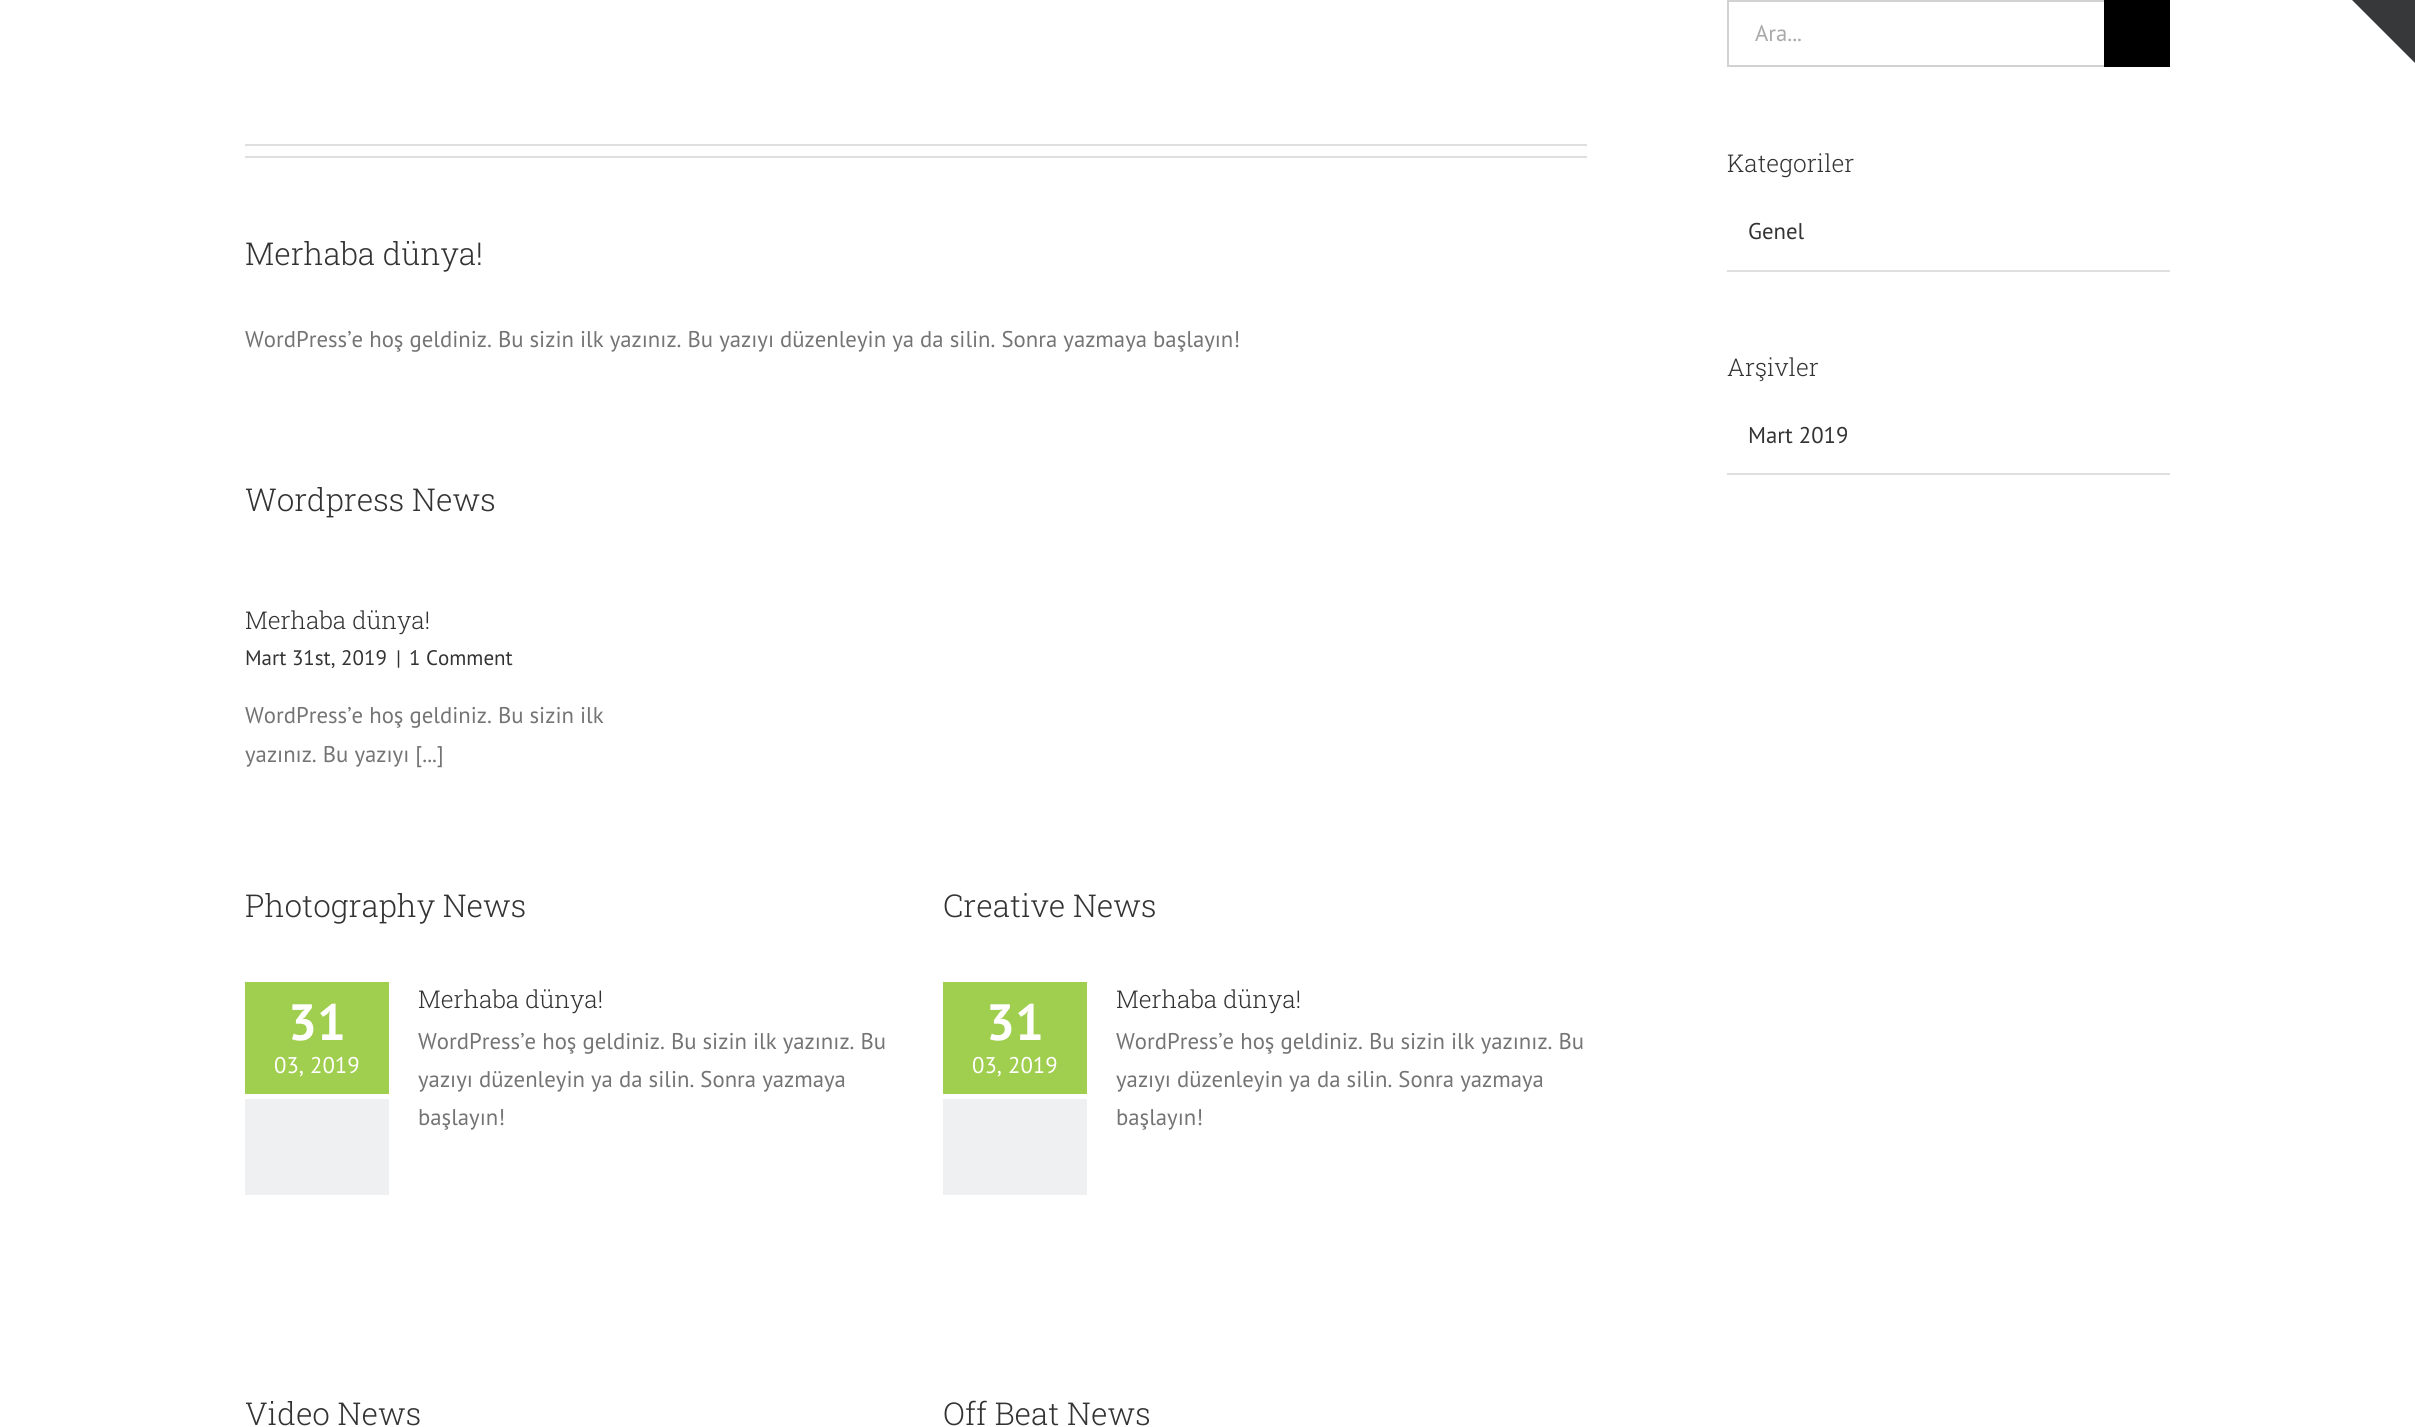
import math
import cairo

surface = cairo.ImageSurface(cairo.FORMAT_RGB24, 2415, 1427)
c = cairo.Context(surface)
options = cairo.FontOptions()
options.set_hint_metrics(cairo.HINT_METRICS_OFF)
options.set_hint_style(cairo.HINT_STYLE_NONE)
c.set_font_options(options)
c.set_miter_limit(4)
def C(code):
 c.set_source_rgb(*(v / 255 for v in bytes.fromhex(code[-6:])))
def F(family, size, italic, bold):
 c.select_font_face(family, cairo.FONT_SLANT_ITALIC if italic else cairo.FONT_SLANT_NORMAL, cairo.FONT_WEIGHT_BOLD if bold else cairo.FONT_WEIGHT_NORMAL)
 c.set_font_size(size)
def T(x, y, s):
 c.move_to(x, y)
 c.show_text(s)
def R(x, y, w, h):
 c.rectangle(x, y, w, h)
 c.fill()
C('ffffff')
c.paint()
C('e0dede')
R(245,144,1342,2)
R(245,156,1342,2)
F('Roboto Slab Light',31.5,0,0)
C('333333')
T(245,265,'Merhaba dünya!')
F('PT Sans',22.75,0,0)
C('747474')
T(245,347,'WordPress’e hoş geldiniz. Bu sizin ilk yazınız. Bu yazıyı düzenleyin ya da silin. Sonra yazmaya başlayın!')
F('Roboto Slab Light',31.5,0,0)
C('333333')
T(245,511,'Wordpress News')
F('Roboto Slab Light',24.5,0,0)
T(245,629,'Merhaba dünya!')
F('PT Sans',21,0,0)
T(245,665,'Mart 31st, 2019')
T(396,665,'|')
T(409,665,'1 Comment')
F('PT Sans',22.75,0,0)
C('747474')
T(245,723,'WordPress’e hoş geldiniz. Bu sizin ilk')
T(245,762,'yazınız. Bu yazıyı [...]')
F('Roboto Slab Light',31.5,0,0)
C('333333')
T(245,917,'Photography News')
C('a0ce4e')
R(245,982,144,112)
F('PT Sans',51,0,1)
C('ffffff')
T(288,1040,'31')
F('PT Sans',22.75,0,0)
T(274,1073,'03, 2019')
C('eef0f2')
R(245,1099,144,96)
F('Roboto Slab Light',24.5,0,0)
C('333333')
T(418,1008,'Merhaba dünya!')
F('PT Sans',22.75,0,0)
C('747474')
T(418,1049,'WordPress’e hoş geldiniz. Bu sizin ilk yazınız. Bu')
T(418,1087,'yazıyı düzenleyin ya da silin. Sonra yazmaya')
T(418,1125,'başlayın!')
F('Roboto Slab Light',31.5,0,0)
C('333333')
T(943,917,'Creative News')
C('a0ce4e')
R(943,982,144,112)
F('PT Sans',51,0,1)
C('ffffff')
T(986,1040,'31')
F('PT Sans',22.75,0,0)
T(972,1073,'03, 2019')
C('eef0f2')
R(943,1099,144,96)
F('Roboto Slab Light',24.5,0,0)
C('333333')
T(1116,1008,'Merhaba dünya!')
F('PT Sans',22.75,0,0)
C('747474')
T(1116,1049,'WordPress’e hoş geldiniz. Bu sizin ilk yazınız. Bu')
T(1116,1087,'yazıyı düzenleyin ya da silin. Sonra yazmaya')
T(1116,1125,'başlayın!')
F('Roboto Slab Light',31.5,0,0)
C('333333')
T(245,1425,'Video News')
T(943,1425,'Off Beat News')
C('d2d2d2')
R(1727,0,377,2)
R(1727,65,377,2)
R(1727,0,2,67)
F('PT Sans',22.75,0,0)
C('aaa9a9')
T(1755,41,'Ara...')
C('000000')
R(2104,0,66,67)
F('Roboto Slab Light',24.5,0,0)
C('333333')
T(1727,172,'Kategoriler')
C('e0dede')
R(1727,270,443,2)
F('PT Sans',22.75,0,0)
C('333333')
T(1748,239,'Genel')
F('Roboto Slab Light',24.5,0,0)
T(1727,376,'Arşivler')
C('e0dede')
R(1727,473,443,2)
F('PT Sans',22.75,0,0)
C('333333')
T(1748,443,'Mart 2019')
C('363839')
c.new_path()
c.move_to(2352,0)
c.line_to(2415,0)
c.line_to(2415,63)
c.close_path()
c.fill()
surface.write_to_png('o.png')
